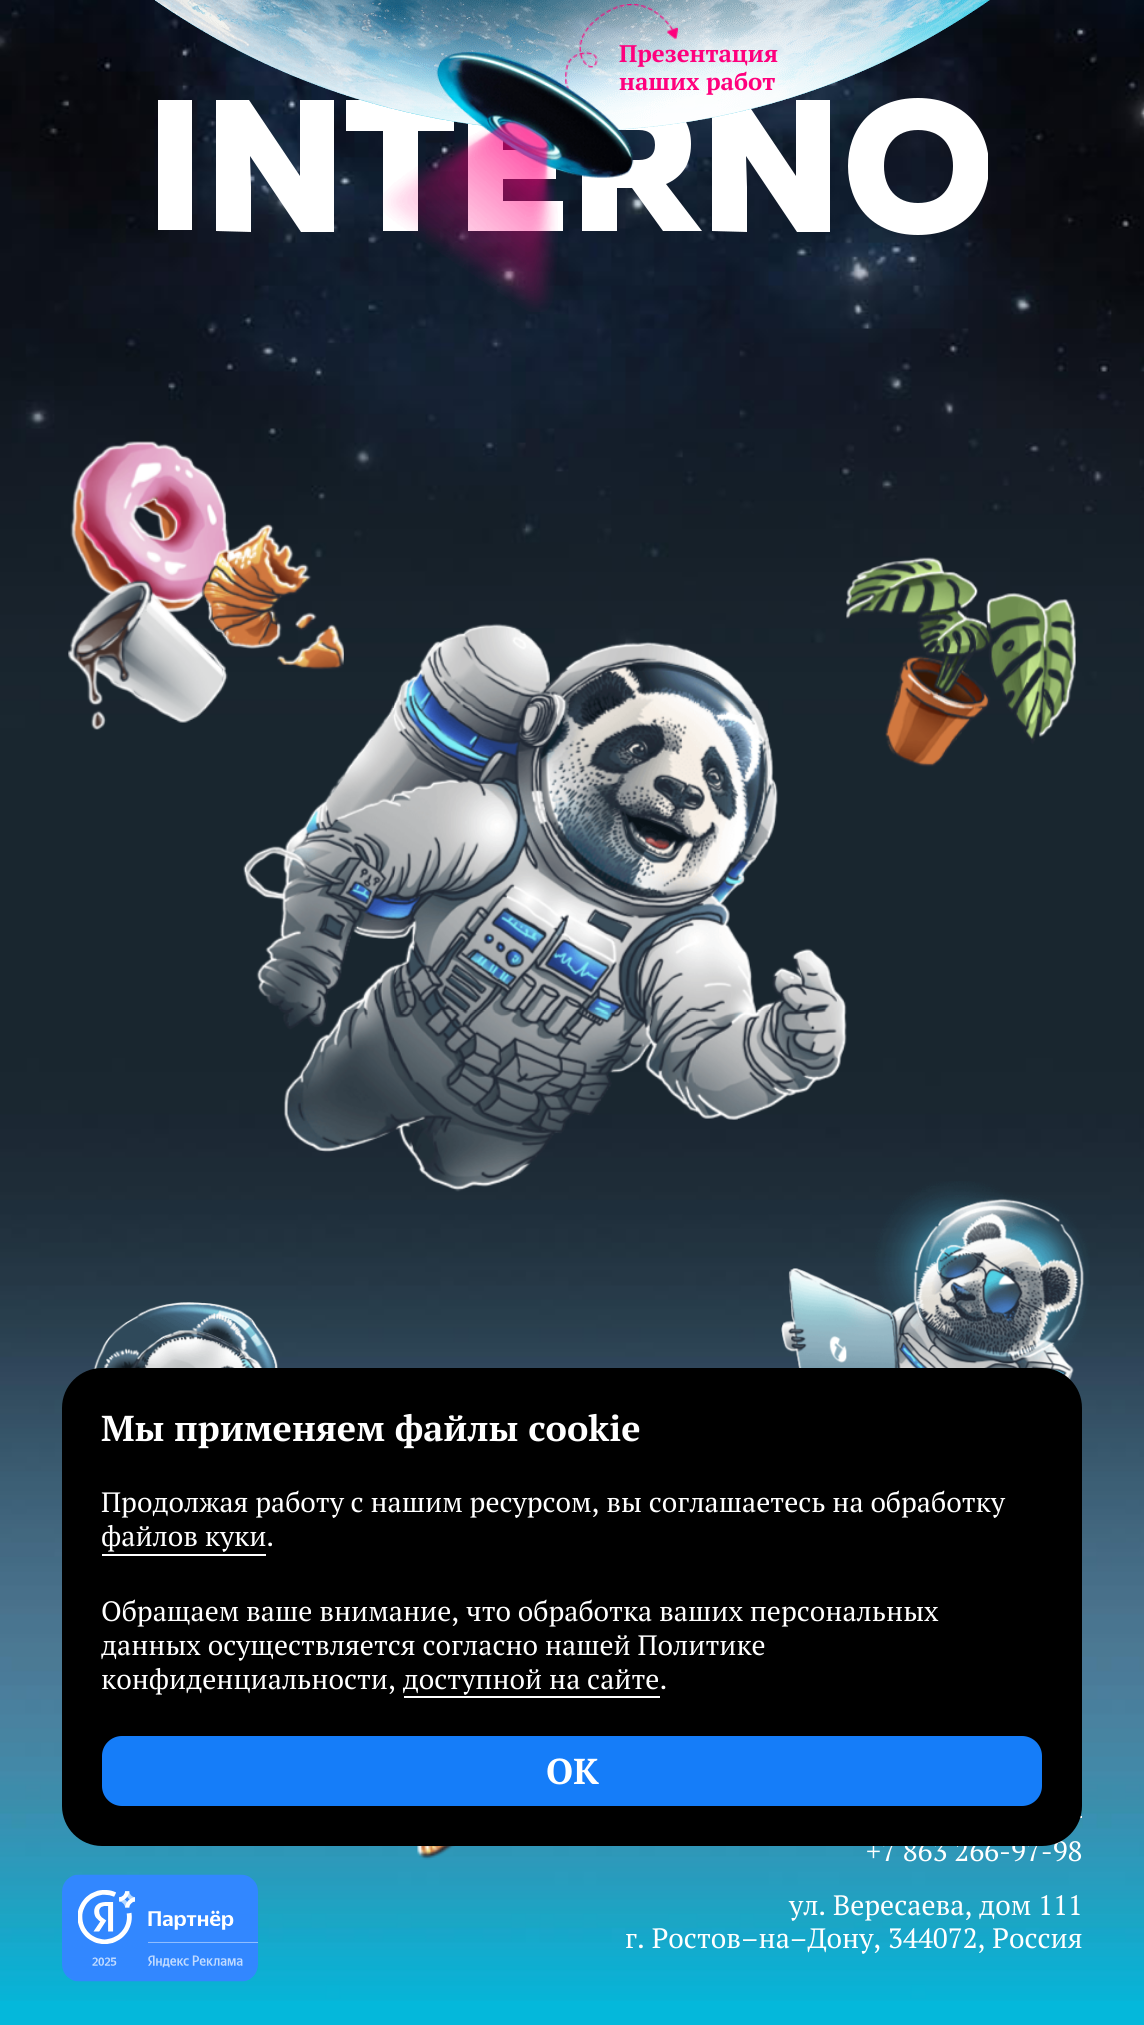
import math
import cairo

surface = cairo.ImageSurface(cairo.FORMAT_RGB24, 1144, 2025)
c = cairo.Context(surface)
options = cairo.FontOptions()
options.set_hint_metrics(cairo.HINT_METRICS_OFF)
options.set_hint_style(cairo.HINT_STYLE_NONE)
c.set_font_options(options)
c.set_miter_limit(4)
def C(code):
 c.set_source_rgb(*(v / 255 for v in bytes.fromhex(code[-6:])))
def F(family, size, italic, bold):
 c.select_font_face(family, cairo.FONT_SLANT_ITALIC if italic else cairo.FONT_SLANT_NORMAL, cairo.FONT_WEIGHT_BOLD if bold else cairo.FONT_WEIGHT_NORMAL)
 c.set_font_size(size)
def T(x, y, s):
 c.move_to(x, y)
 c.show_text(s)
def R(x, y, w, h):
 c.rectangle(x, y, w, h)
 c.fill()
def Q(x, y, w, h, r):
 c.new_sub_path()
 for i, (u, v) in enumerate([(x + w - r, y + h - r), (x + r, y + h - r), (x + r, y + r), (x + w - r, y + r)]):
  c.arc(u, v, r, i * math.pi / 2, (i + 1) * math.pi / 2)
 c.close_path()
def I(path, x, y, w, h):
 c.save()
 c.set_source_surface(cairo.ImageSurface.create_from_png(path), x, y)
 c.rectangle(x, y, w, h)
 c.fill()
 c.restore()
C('04b8db')
c.paint()
I('1.png',0,0,1144,2001)
C('ffffff')
R(158,100,34,130)
c.new_path()
c.move_to(251,232)
c.line_to(251,187)
c.line_to(250,156)
c.line_to(301,232)
c.line_to(334,232)
c.line_to(334,100)
c.line_to(300,100)
c.line_to(300,145)
c.line_to(300,176)
c.line_to(249,100)
c.line_to(216,100)
c.line_to(216,231)
c.close_path()
c.fill()
c.save()
c.rectangle(346,100,108,132)
c.clip()
c.new_path()
c.move_to(346,100)
c.line_to(346,131)
c.line_to(383,131)
c.line_to(383,231)
c.line_to(418,231)
c.line_to(418,131)
c.line_to(455,131)
c.line_to(455,100)
c.close_path()
c.fill()
c.restore()
c.new_path()
c.move_to(468,100)
c.line_to(468,231)
c.line_to(563,231)
c.line_to(563,201)
c.line_to(503,201)
c.line_to(503,179)
c.line_to(556,179)
c.line_to(556,150)
c.line_to(503,150)
c.line_to(503,130)
c.line_to(562,130)
c.line_to(562,100)
c.close_path()
c.fill()
c.new_path()
c.move_to(617,231)
c.line_to(617,188)
c.line_to(632,188)
c.line_to(663,231)
c.line_to(702,231)
c.line_to(666,184)
c.curve_to(680,178,691,166,691,144)
c.curve_to(691,110,664,100,637,100)
c.line_to(582,100)
c.line_to(582,231)
c.close_path()
c.move_to(617,130)
c.line_to(639,130)
c.curve_to(649,130,655,135,655,145)
c.curve_to(655,155,649,160,639,160)
c.line_to(617,160)
c.close_path()
c.fill()
c.new_path()
c.move_to(747,232)
c.line_to(747,187)
c.line_to(746,156)
c.line_to(797,232)
c.line_to(830,232)
c.line_to(830,100)
c.line_to(796,100)
c.line_to(796,145)
c.line_to(796,176)
c.line_to(745,100)
c.line_to(712,100)
c.line_to(712,231)
c.close_path()
c.fill()
c.save()
c.rectangle(848,98,140,138)
c.clip()
c.new_path()
c.move_to(848,166)
c.curve_to(848,203,871,235,918,235)
c.curve_to(965,235,989,203,989,166)
c.curve_to(989,130,965,98,918,98)
c.curve_to(871,98,848,130,848,166)
c.close_path()
c.move_to(953,166)
c.curve_to(953,188,941,203,918,203)
c.curve_to(896,203,884,188,884,166)
c.curve_to(884,145,896,130,918,130)
c.curve_to(941,130,953,145,953,166)
c.close_path()
c.fill()
c.restore()
I('2.png',70,441,160,173)
I('8.png',781,1181,309,199)
I('6.png',243,623,604,569)
I('3.png',200,523,144,147)
I('4.png',846,557,230,210)
I('5.png',68,579,160,151)
I('7.png',93,1302,185,67)
I('9.png',417,1846,38,14)
I('10.png',155,0,835,130)
I('12.png',182,0,807,120)
I('11.png',156,0,831,130)
I('13.png',344,0,645,130)
I('14.png',565,4,113,85)
I('15.png',436,52,198,126)
I('16.png',382,119,176,193)
F('PT Serif',24,0,1)
C('ff007d')
T(619,62,'Презентация')
T(619,90,'наших работ')
C('ffffff')
R(1080,1816,2,2)
F('PT Serif',28,0,0)
T(866,1861,'+7 863 266-97-98')
C('000000')
Q(62,1368,1020,478,40)
c.fill()
F('PT Serif',36,0,1)
C('ffffff')
T(101,1441,'Мы применяем файлы cookie')
F('PT Serif',28,0,0)
T(101,1512,'Продолжая работу с нашим ресурсом, вы соглашаетесь на обработку')
T(101,1546,'файлов куки.')
R(102,1554,164,2)
T(101,1621,'Обращаем ваше внимание, что обработка ваших персональных')
T(101,1655,'данных осуществляется согласно нашей Политике')
T(101,1689,'конфиденциальности, доступной на сайте.')
R(404,1696,256,2)
C('157df9')
Q(102,1736,940,70,20)
c.fill()
F('PT Serif',36,0,1)
C('ffffff')
T(546,1784,'OK')
I('17.png',62,1874,196,108)
F('PT Serif',28,0,0)
T(789,1915,'ул. Вересаева, дом 111')
T(625,1948,'г. Ростов–на–Дону, 344072, Россия')
surface.write_to_png('o.png')
